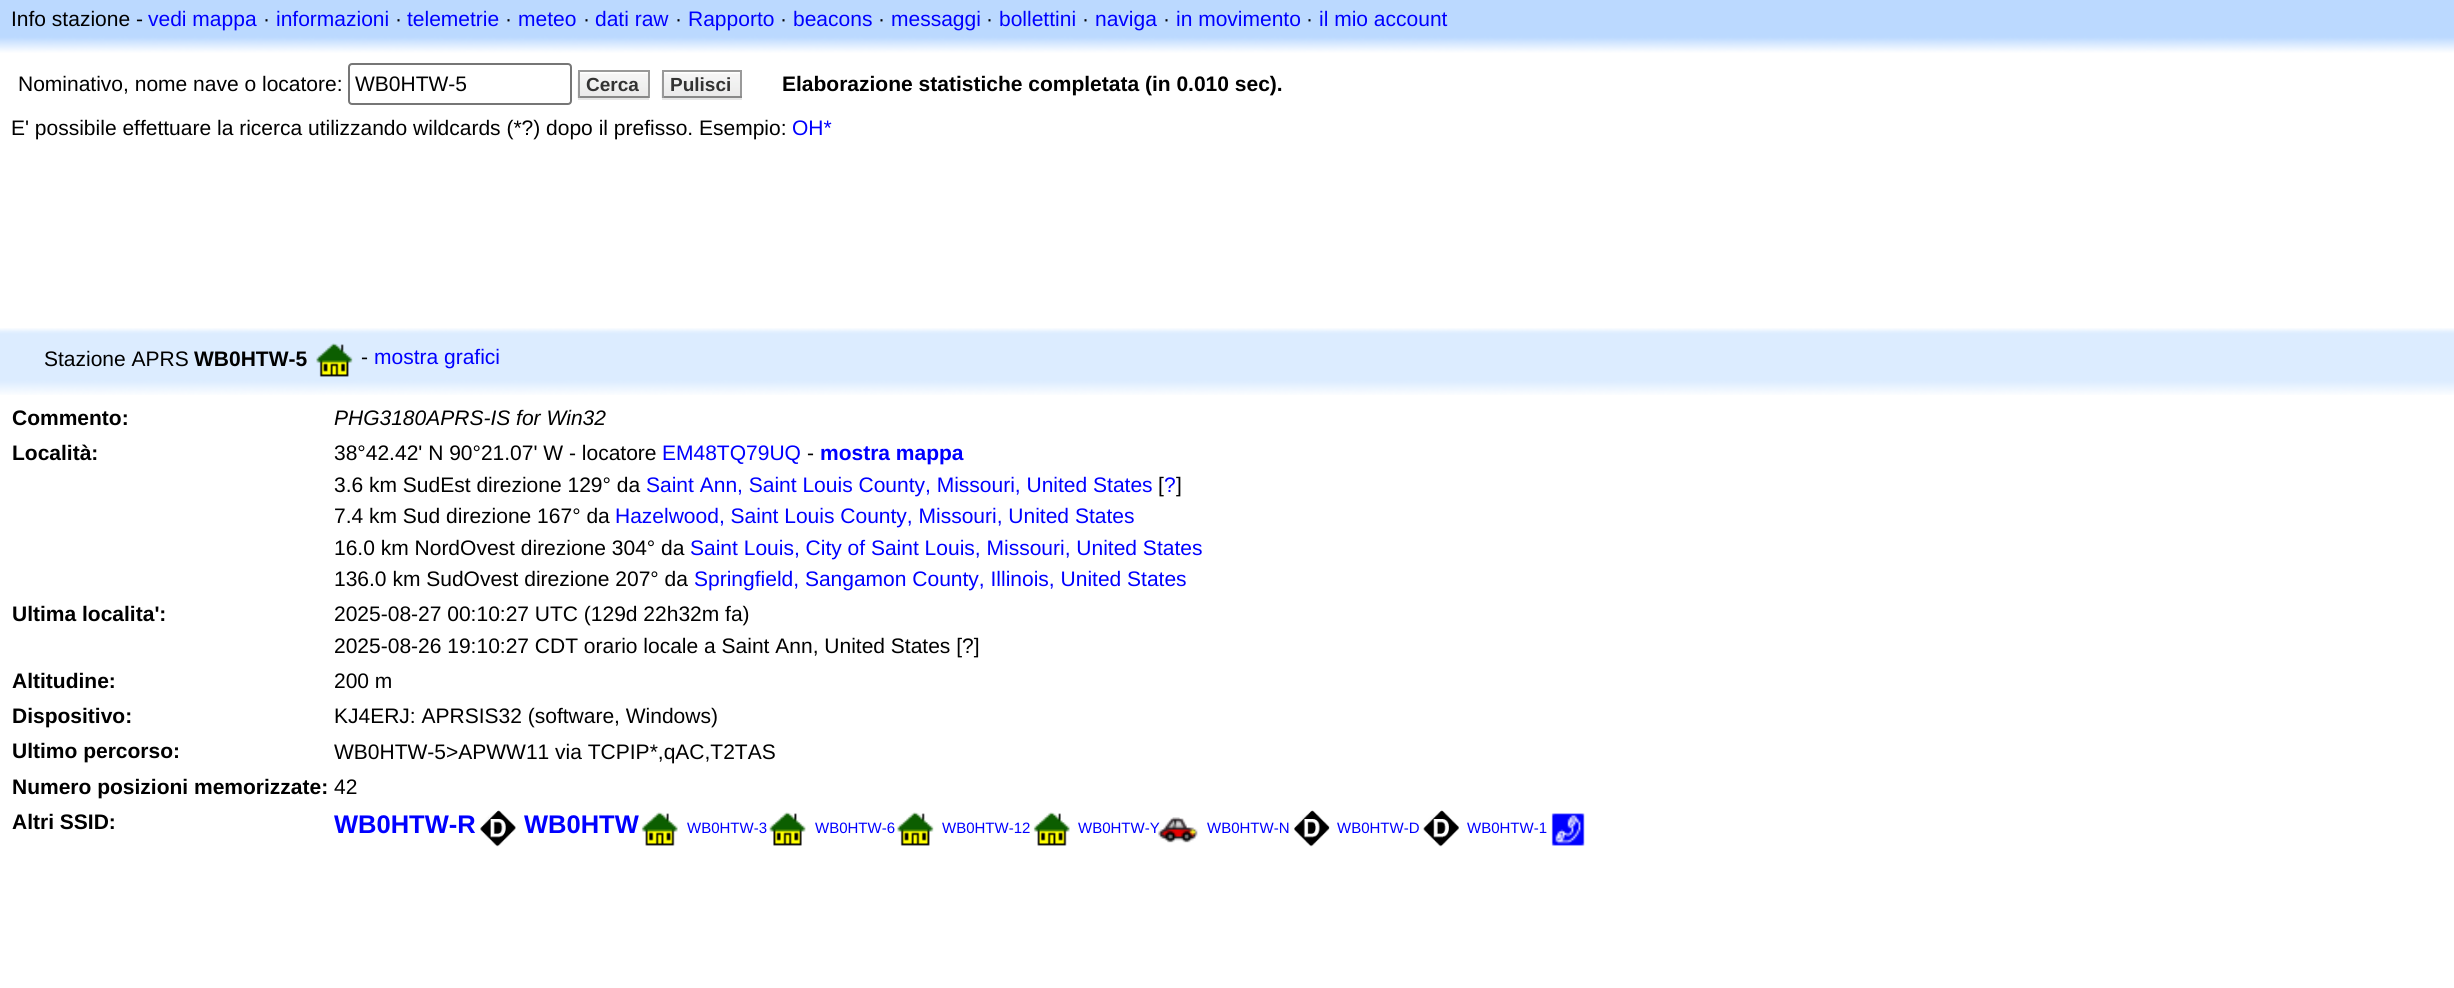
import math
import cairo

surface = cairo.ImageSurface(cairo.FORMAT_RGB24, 2454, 988)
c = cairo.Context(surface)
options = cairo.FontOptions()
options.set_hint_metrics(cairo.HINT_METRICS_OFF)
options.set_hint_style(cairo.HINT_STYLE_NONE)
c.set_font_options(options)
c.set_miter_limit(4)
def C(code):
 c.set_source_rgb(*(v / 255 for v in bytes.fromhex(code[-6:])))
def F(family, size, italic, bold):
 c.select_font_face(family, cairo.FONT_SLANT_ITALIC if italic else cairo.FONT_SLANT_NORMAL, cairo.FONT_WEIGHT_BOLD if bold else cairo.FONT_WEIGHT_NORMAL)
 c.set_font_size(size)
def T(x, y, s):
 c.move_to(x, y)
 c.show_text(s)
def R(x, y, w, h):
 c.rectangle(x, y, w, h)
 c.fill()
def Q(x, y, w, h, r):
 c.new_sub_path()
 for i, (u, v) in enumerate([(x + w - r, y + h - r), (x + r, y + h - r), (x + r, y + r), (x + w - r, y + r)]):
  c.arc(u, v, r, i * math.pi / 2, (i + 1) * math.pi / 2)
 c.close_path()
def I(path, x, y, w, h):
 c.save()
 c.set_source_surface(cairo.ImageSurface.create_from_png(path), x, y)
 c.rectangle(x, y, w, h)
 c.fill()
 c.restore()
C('ffffff')
c.paint()
C('bbd9ff')
R(0,0,2454,35)
F('Liberation Sans',21,0,0)
C('000000')
T(11,26,'Info stazione -')
C('0000ff')
T(148,26,'vedi mappa')
C('000000')
T(263,26,'·')
C('0000ff')
T(276,26,'informazioni')
C('000000')
T(395,26,'·')
C('0000ff')
T(407,26,'telemetrie')
C('000000')
T(505,26,'·')
C('0000ff')
T(518,26,'meteo')
C('000000')
T(583,26,'·')
C('0000ff')
T(595,26,'dati raw')
C('000000')
T(675,26,'·')
C('0000ff')
T(688,26,'Rapporto')
C('000000')
T(780,26,'·')
C('0000ff')
T(793,26,'beacons')
C('000000')
T(878,26,'·')
C('0000ff')
T(891,26,'messaggi')
C('000000')
T(986,26,'·')
C('0000ff')
T(999,26,'bollettini')
C('000000')
T(1082,26,'·')
C('0000ff')
T(1095,26,'naviga')
C('000000')
T(1163,26,'·')
C('0000ff')
T(1176,26,'in movimento')
C('000000')
T(1306,26,'·')
C('0000ff')
T(1319,26,'il mio account')
I('1.png',0,35,2454,18)
C('000000')
T(18,91,'Nominativo, nome nave o locatore:')
Q(349,64,222,40,3)
C('767676')
c.stroke()
C('000000')
T(355,91,'WB0HTW-5')
C('e6e6e6')
R(578,98,71,2)
I('2.png',577,71,71,27)
C('999999')
R(578,70,71,2)
R(648,70,2,28)
C('888888')
R(578,96,71,2)
C('999999')
R(578,70,2,28)
F('Liberation Sans',19,0,1)
C('333333')
T(586,91,'Cerca')
C('e6e6e6')
R(662,98,80,2)
I('3.png',661,71,79,27)
C('999999')
R(662,70,80,2)
R(740,70,2,28)
C('888888')
R(662,96,80,2)
C('999999')
R(662,70,2,28)
C('333333')
T(670,91,'Pulisci')
F('Liberation Sans',21,0,1)
C('000000')
T(782,91,'Elaborazione statistiche completata (in 0.010 sec).')
F('Liberation Sans',21,0,0)
T(11,135,'E\' possibile effettuare la ricerca utilizzando wildcards (*?) dopo il prefisso. Esempio:')
C('0000ff')
T(792,135,'OH*')
I('4.png',0,328,2454,6)
C('dcecff')
R(0,334,2454,46)
C('000000')
T(44,366,'Stazione APRS')
F('Liberation Sans',21,0,1)
T(194,366,'WB0HTW-5')
I('5.png',316,343,37,34)
F('Liberation Sans',21,0,0)
T(361,364,'-')
C('0000ff')
T(374,364,'mostra grafici')
I('6.png',0,380,2454,15)
F('Liberation Sans',21,0,1)
C('000000')
T(12,425,'Commento:')
F('Liberation Sans',21,1,0)
T(334,425,'PHG3180APRS-IS for Win32')
F('Liberation Sans',21,0,1)
T(12,460,'Località:')
F('Liberation Sans',21,0,0)
T(334,460,'38°42.42\' N 90°21.07\' W - locatore')
C('0000ff')
T(662,460,'EM48TQ79UQ')
C('000000')
T(807,460,'-')
F('Liberation Sans',21,0,1)
C('0000ff')
T(820,460,'mostra mappa')
F('Liberation Sans',21,0,0)
C('000000')
T(334,492,'3.6 km SudEst direzione 129° da')
C('0000ff')
T(646,492,'Saint Ann, Saint Louis County, Missouri, United States')
C('000000')
T(1158,492,'[')
C('0000ff')
T(1164,492,'?')
C('000000')
T(1176,492,']')
T(334,523,'7.4 km Sud direzione 167° da')
C('0000ff')
T(615,523,'Hazelwood, Saint Louis County, Missouri, United States')
C('000000')
T(334,555,'16.0 km NordOvest direzione 304° da')
C('0000ff')
T(690,555,'Saint Louis, City of Saint Louis, Missouri, United States')
C('000000')
T(334,586,'136.0 km SudOvest direzione 207° da')
C('0000ff')
T(694,586,'Springfield, Sangamon County, Illinois, United States')
F('Liberation Sans',21,0,1)
C('000000')
T(12,621,'Ultima localita\':')
F('Liberation Sans',21,0,0)
T(334,621,'2025-08-27 00:10:27 UTC (129d 22h32m fa)')
T(334,653,'2025-08-26 19:10:27 CDT orario locale a Saint Ann, United States [?]')
F('Liberation Sans',21,0,1)
T(12,688,'Altitudine:')
F('Liberation Sans',21,0,0)
T(334,688,'200 m')
F('Liberation Sans',21,0,1)
T(12,723,'Dispositivo:')
F('Liberation Sans',21,0,0)
T(334,723,'KJ4ERJ: APRSIS32 (software, Windows)')
F('Liberation Sans',21,0,1)
T(12,758,'Ultimo percorso:')
F('Liberation Sans',21,0,0)
T(334,759,'WB0HTW-5>APWW11 via TCPIP*,qAC,T2TAS')
F('Liberation Sans',21,0,1)
T(12,794,'Numero posizioni memorizzate:')
F('Liberation Sans',21,0,0)
T(334,794,'42')
F('Liberation Sans',21,0,1)
T(12,829,'Altri SSID:')
F('Liberation Sans',25.5,0,1)
C('0000ff')
T(334,833,'WB0HTW-R')
I('7.png',480,810,36,37)
T(524,833,'WB0HTW')
I('8.png',641,812,37,34)
F('Liberation Sans',15,0,0)
T(687,833,'WB0HTW-3')
I('9.png',769,812,37,34)
T(815,833,'WB0HTW-6')
I('10.png',897,812,37,34)
T(942,833,'WB0HTW-12')
I('8.png',1033,812,37,34)
T(1078,833,'WB0HTW-Y')
I('11.png',1158,817,40,26)
T(1207,833,'WB0HTW-N')
I('12.png',1294,810,36,37)
T(1337,833,'WB0HTW-D')
I('13.png',1423,810,36,37)
T(1467,833,'WB0HTW-1')
I('14.png',1551,813,34,33)
surface.write_to_png('o.png')
